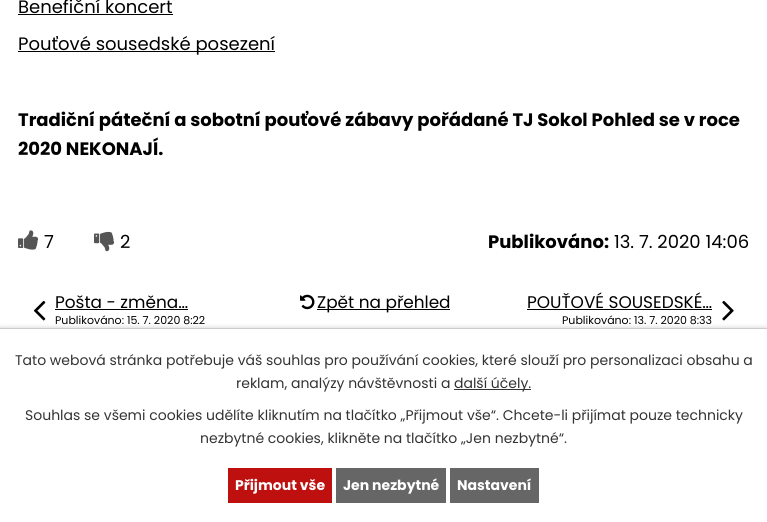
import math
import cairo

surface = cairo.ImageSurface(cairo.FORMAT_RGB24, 767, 522)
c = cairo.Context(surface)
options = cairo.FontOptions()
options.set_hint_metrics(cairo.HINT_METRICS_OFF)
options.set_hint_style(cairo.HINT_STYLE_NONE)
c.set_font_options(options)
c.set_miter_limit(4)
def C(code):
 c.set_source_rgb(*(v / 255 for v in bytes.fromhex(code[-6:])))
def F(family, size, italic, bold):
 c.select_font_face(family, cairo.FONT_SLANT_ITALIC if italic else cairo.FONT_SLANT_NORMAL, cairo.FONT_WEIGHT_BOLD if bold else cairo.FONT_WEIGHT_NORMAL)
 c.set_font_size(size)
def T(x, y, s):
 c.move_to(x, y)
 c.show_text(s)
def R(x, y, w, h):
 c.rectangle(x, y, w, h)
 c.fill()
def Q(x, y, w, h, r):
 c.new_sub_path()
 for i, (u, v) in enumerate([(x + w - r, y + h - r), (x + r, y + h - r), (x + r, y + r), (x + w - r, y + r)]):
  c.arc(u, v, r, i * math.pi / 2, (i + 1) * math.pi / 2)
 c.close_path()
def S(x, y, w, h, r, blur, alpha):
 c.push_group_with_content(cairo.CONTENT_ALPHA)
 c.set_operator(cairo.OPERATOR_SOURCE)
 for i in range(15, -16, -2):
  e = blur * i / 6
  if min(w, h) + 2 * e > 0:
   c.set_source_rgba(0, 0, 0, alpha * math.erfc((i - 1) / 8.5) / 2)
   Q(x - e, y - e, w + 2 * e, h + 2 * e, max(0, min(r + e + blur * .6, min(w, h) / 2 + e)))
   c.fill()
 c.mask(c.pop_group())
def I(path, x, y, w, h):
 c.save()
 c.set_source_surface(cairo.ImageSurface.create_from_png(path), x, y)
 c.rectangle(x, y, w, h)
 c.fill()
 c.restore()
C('ffffff')
c.paint()
F('Poppins',18,0,0)
C('000000')
T(18,13,'Benefiční koncert')
R(18,14,155,1)
R(18,51,257,1)
T(18,50,'Pouťové sousedské posezení')
F('Poppins',18,0,1)
T(18,126,'Tradiční páteční a sobotní pouťové zábavy pořádané TJ Sokol Pohled se v roce')
T(18,155,'2020 NEKONAJÍ.')
I('1.png',18,230,21,20)
F('Poppins',18,0,0)
T(44,248,'7')
I('2.png',94,231,21,21)
T(120,248,'2')
F('Poppins',18,0,1)
T(488,248,'Publikováno:')
F('Poppins',18,0,0)
T(614,248,'13. 7. 2020 14:06')
I('3.png',33,300,13,21)
F('Poppins',16.9,0,0)
T(55,308,'Pošta - změna…')
R(55,309,133,1)
F('Poppins',11,0,0)
T(55,324,'Publikováno: 15. 7. 2020 8:22')
I('4.png',300,294,15,16)
R(317,309,133,1)
F('Poppins',16.9,0,0)
T(317,308,'Zpět na přehled')
T(527,308,'POUŤOVÉ SOUSEDSKÉ…')
R(527,309,185,1)
F('Poppins',11,0,0)
T(562,324,'Publikováno: 13. 7. 2020 8:33')
I('5.png',722,300,12,21)
C('000000')
S(0,328,767,194,0,2.5,.2)
C('ffffff')
R(0,329,767,193)
C('cccccc')
R(0,328,767,1)
F('Poppins',14,0,0)
C('333333')
T(15,365,'Tato webová stránka potřebuje váš souhlas pro používání cookies, které slouží pro personalizaci obsahu a')
T(236,388,'reklam, analýzy návštěvnosti a')
R(454,389,77,1)
T(454,388,'další účely.')
T(25,420,'Souhlas se všemi cookies udělíte kliknutím na tlačítko „Přijmout vše“. Chcete-li přijímat pouze technicky')
T(200,443,'nezbytné cookies, klikněte na tlačítko „Jen nezbytné“.')
C('bf1010')
R(228,468,104,35)
F('Poppins',14,0,1)
C('ffffff')
T(235,490,'Přijmout vše')
C('666666')
R(336,468,110,35)
C('ffffff')
T(343,490,'Jen nezbytné')
C('666666')
R(450,468,89,35)
C('ffffff')
T(457,490,'Nastavení')
surface.write_to_png('o.png')
